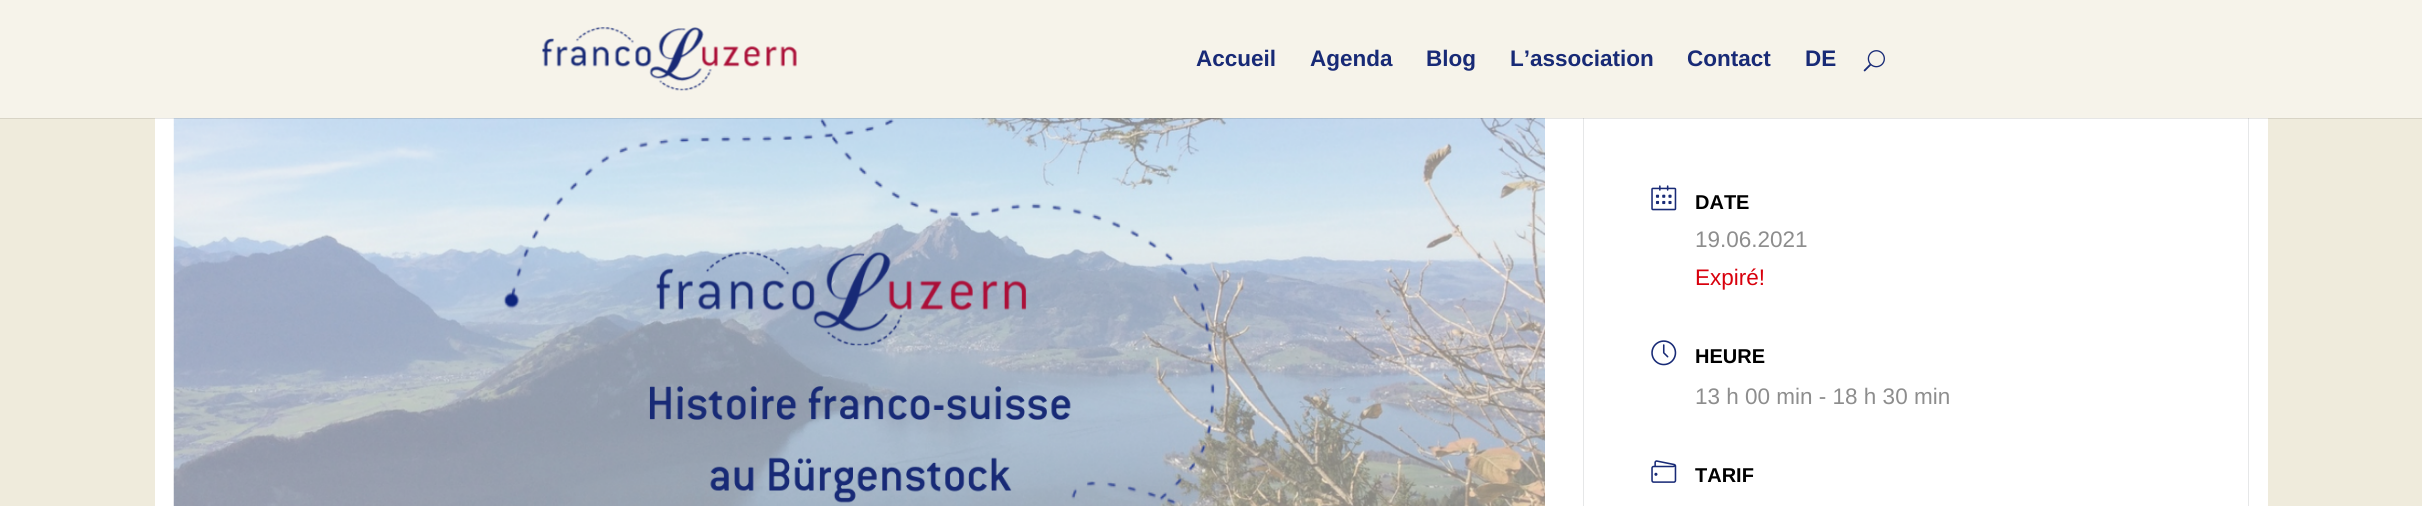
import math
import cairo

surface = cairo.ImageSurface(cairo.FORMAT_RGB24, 2422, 506)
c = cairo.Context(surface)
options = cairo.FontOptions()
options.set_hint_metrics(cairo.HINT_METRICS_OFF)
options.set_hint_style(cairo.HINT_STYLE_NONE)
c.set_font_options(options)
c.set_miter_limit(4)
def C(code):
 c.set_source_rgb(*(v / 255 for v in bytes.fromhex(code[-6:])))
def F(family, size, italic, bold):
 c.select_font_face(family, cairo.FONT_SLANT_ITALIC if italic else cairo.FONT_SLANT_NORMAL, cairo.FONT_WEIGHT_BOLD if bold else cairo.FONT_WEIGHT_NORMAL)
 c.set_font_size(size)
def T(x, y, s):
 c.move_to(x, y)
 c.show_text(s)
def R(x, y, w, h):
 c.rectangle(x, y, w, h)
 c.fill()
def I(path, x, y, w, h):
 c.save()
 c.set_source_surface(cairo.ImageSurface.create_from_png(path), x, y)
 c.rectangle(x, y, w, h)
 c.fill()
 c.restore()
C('efebdc')
c.paint()
C('ffffff')
R(155,118,2113,388)
I('3.png',173,118,1372,388)
c.rectangle(1583.5,116.5,665,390)
C('e6e7e8')
c.set_line_width(1)
c.stroke()
c.set_source_rgba(0,0,0,0.1)
c.new_path()
c.move_to(0,118)
c.line_to(0,119)
c.line_to(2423,119)
c.line_to(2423,1)
c.line_to(2422,1)
c.line_to(2422,118)
c.close_path()
c.fill()
C('f6f3ea')
R(0,0,2422,118)
I('1.png',542,27,255,64)
F('Liberation Sans',22.5,0,1)
C('182a76')
T(1196,66,'Accueil')
T(1310,66,'Agenda')
T(1426,66,'Blog')
T(1510,66,'L’association')
T(1687,66,'Contact')
T(1805,66,'DE')
I('2.png',1863,50,22,22)
I('4.png',1651,185,26,26)
F('Liberation Sans',20,0,1)
C('000000')
T(1695,209,'DATE')
F('Liberation Sans',22.5,0,0)
C('8d8d8d')
T(1695,247,'19.06.2021')
C('d8000c')
T(1695,285,'Expiré!')
I('5.png',1651,340,26,26)
F('Liberation Sans',20,0,1)
C('000000')
T(1695,363,'HEURE')
F('Liberation Sans',22.5,0,0)
C('8d8d8d')
T(1695,404,'13 h 00 min - 18 h 30 min')
I('6.png',1651,460,26,23)
F('Liberation Sans',20,0,1)
C('000000')
T(1695,482,'TARIF')
surface.write_to_png('o.png')
